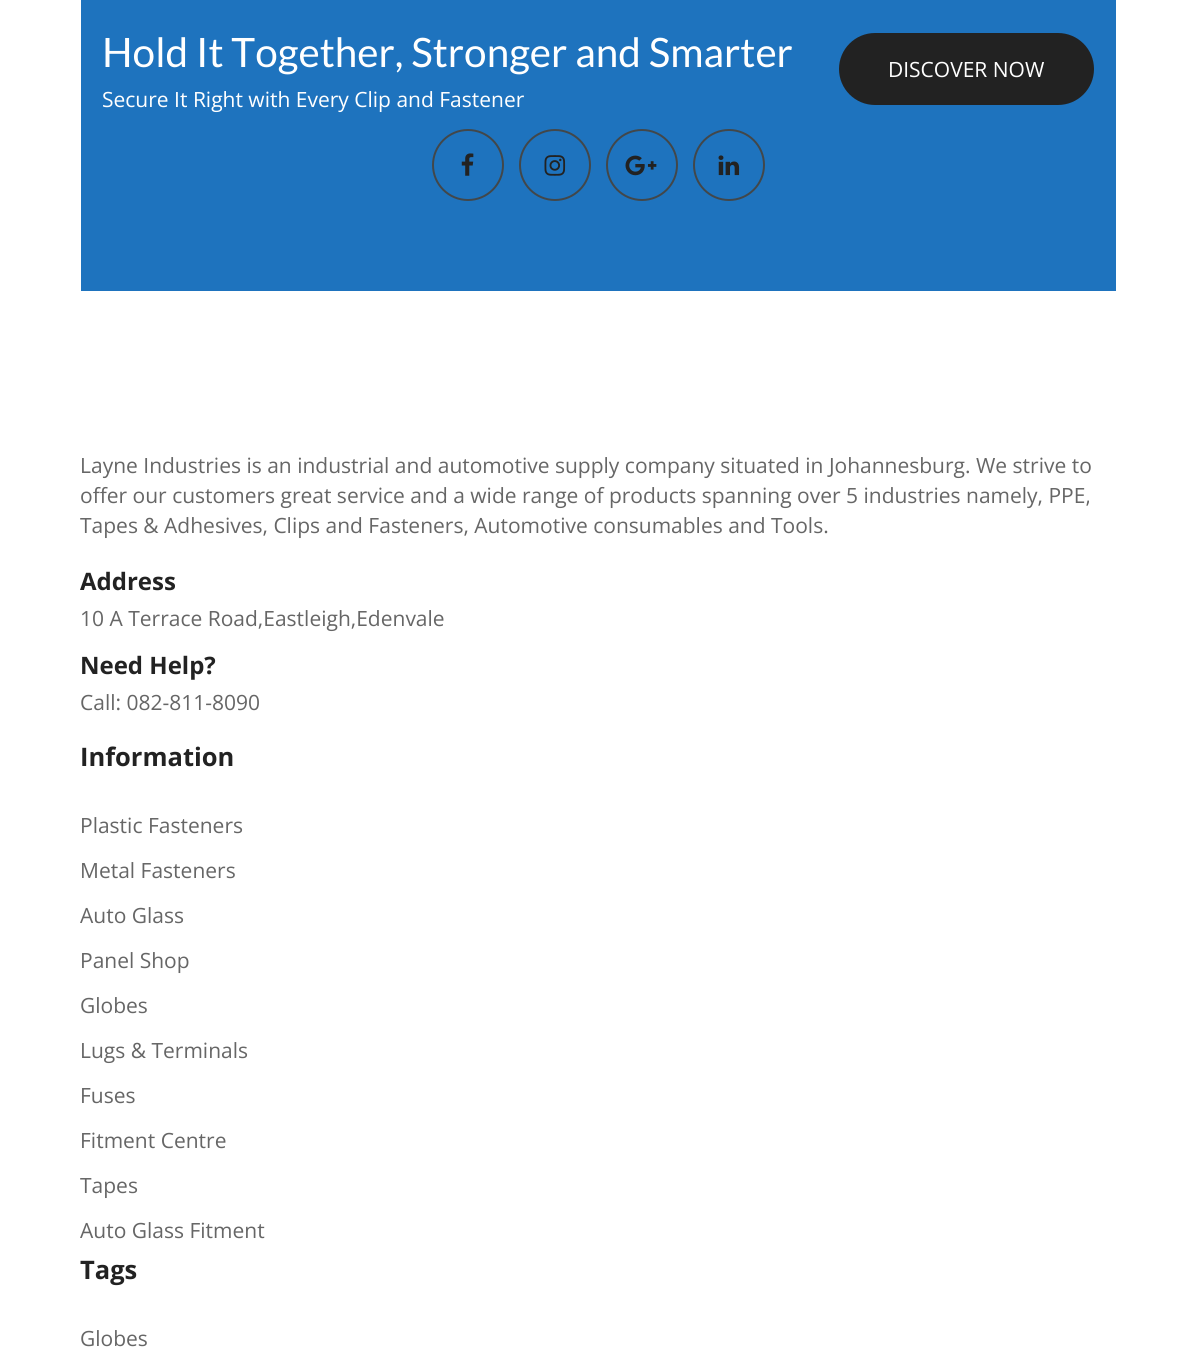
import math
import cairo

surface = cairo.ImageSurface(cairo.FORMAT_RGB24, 1195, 1354)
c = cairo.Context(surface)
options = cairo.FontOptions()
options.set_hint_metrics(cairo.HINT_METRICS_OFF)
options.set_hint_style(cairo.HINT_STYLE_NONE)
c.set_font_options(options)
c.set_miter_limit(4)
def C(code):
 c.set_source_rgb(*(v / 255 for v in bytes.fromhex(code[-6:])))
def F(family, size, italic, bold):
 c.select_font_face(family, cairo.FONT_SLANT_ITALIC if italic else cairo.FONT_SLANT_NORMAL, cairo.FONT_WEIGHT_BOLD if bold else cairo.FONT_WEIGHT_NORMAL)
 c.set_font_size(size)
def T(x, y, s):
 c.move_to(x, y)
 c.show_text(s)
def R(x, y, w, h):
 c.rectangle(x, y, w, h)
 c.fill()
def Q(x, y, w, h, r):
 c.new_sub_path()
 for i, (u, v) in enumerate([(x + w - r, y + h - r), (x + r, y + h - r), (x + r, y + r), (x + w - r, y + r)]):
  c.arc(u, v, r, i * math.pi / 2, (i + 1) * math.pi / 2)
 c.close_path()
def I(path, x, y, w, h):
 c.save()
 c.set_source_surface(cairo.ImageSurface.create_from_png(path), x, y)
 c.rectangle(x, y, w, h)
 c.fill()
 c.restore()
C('ffffff')
c.paint()
C('1e73be')
R(81,0,1035,291)
F('Lato',40.5,0,0)
C('ffffff')
T(102,67,'Hold It Together, Stronger and Smarter')
F('Open Sans',21,0,0)
T(102,107,'Secure It Right with Every Clip and Fastener')
C('222222')
Q(839,33,255,72,36)
c.fill()
C('ffffff')
T(888,77,'DISCOVER NOW')
c.new_path()
c.arc(468,165,35,0,2 * math.pi)
C('42474a')
c.stroke()
I('1.png',461,153,13,23)
c.arc(555,165,35,0,2 * math.pi)
c.stroke()
I('2.png',544,155,22,21)
c.arc(642,165,35,0,2 * math.pi)
c.stroke()
I('3.png',625,155,32,21)
c.arc(729,165,35,0,2 * math.pi)
c.stroke()
I('4.png',718,155,22,21)
C('666666')
T(80,473,'Layne Industries is an industrial and automotive supply company situated in Johannesburg. We strive to')
T(80,503,'offer our customers great service and a wide range of products spanning over 5 industries namely, PPE,')
T(80,533,'Tapes & Adhesives, Clips and Fasteners, Automotive consumables and Tools.')
F('Open Sans',24,0,1)
C('222222')
T(80,590,'Address')
F('Open Sans',21,0,0)
C('666666')
T(80,626,'10 A Terrace Road,Eastleigh,Edenvale')
F('Open Sans',24,0,1)
C('222222')
T(80,674,'Need Help?')
F('Open Sans',21,0,0)
C('666666')
T(80,710,'Call: 082-811-8090')
F('Open Sans',25.5,0,1)
C('222222')
T(80,766,'Information')
F('Open Sans',21,0,0)
C('666666')
T(80,833,'Plastic Fasteners')
T(80,878,'Metal Fasteners')
T(80,923,'Auto Glass')
T(80,968,'Panel Shop')
T(80,1013,'Globes')
T(80,1058,'Lugs & Terminals')
T(80,1103,'Fuses')
T(80,1148,'Fitment Centre')
T(80,1193,'Tapes')
T(80,1238,'Auto Glass Fitment')
F('Open Sans',25.5,0,1)
C('222222')
T(80,1279,'Tags')
F('Open Sans',21,0,0)
C('666666')
T(80,1346,'Globes')
surface.write_to_png('o.png')
